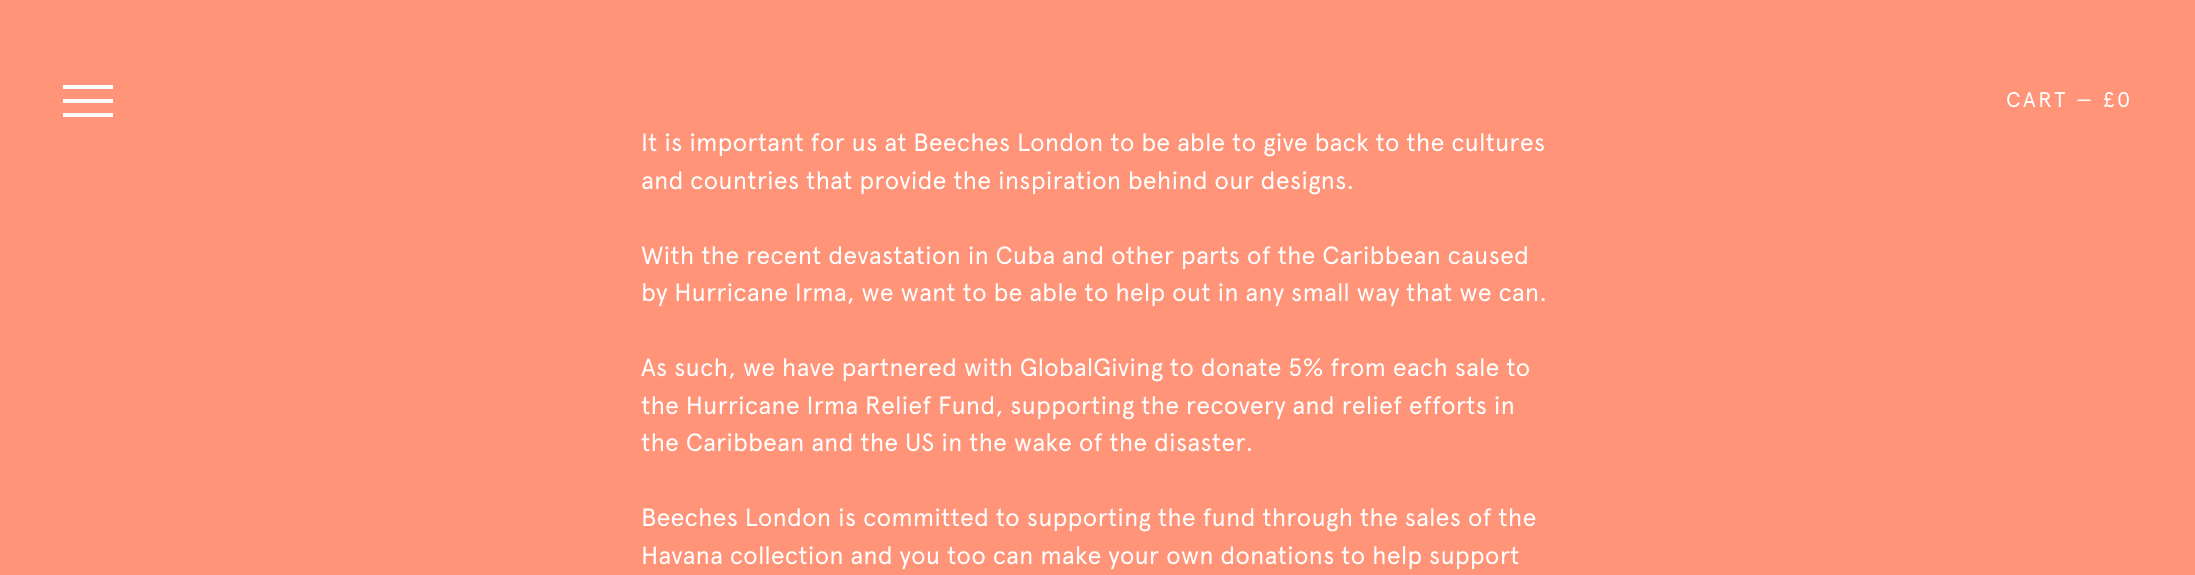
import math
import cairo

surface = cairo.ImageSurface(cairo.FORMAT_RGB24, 2195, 575)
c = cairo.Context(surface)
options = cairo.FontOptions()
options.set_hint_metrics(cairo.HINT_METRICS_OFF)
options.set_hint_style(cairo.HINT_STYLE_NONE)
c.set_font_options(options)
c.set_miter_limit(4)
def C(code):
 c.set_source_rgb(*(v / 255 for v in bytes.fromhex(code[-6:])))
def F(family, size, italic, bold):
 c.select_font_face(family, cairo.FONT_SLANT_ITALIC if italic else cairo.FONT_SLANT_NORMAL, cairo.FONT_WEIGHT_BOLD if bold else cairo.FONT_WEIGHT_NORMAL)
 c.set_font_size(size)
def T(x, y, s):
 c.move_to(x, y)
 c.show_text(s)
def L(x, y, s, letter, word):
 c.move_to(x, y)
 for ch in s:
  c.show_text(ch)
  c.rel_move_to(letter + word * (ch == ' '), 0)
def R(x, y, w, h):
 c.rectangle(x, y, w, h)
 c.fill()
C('ff9479')
c.paint()
C('ffffff')
R(63,85,50,4)
R(63,99,50,4)
R(63,113,50,4)
F('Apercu',21.25,0,0)
L(2006,107,'CART — £0',2.5,0)
F('Apercu',25,0,0)
T(641,151,'It is important for us at Beeches London to be able to give back to the cultures')
T(641,189,'and countries that provide the inspiration behind our designs.')
T(641,264,'With the recent devastation in Cuba and other parts of the Caribbean caused')
T(641,301,'by Hurricane Irma, we want to be able to help out in any small way that we can.')
T(641,376,'As such, we have partnered with GlobalGiving to donate 5% from each sale to')
T(641,414,'the Hurricane Irma Relief Fund, supporting the recovery and relief efforts in')
T(641,451,'the Caribbean and the US in the wake of the disaster.')
T(641,526,'Beeches London is committed to supporting the fund through the sales of the')
T(641,564,'Havana collection and you too can make your own donations to help support')
surface.write_to_png('o.png')
